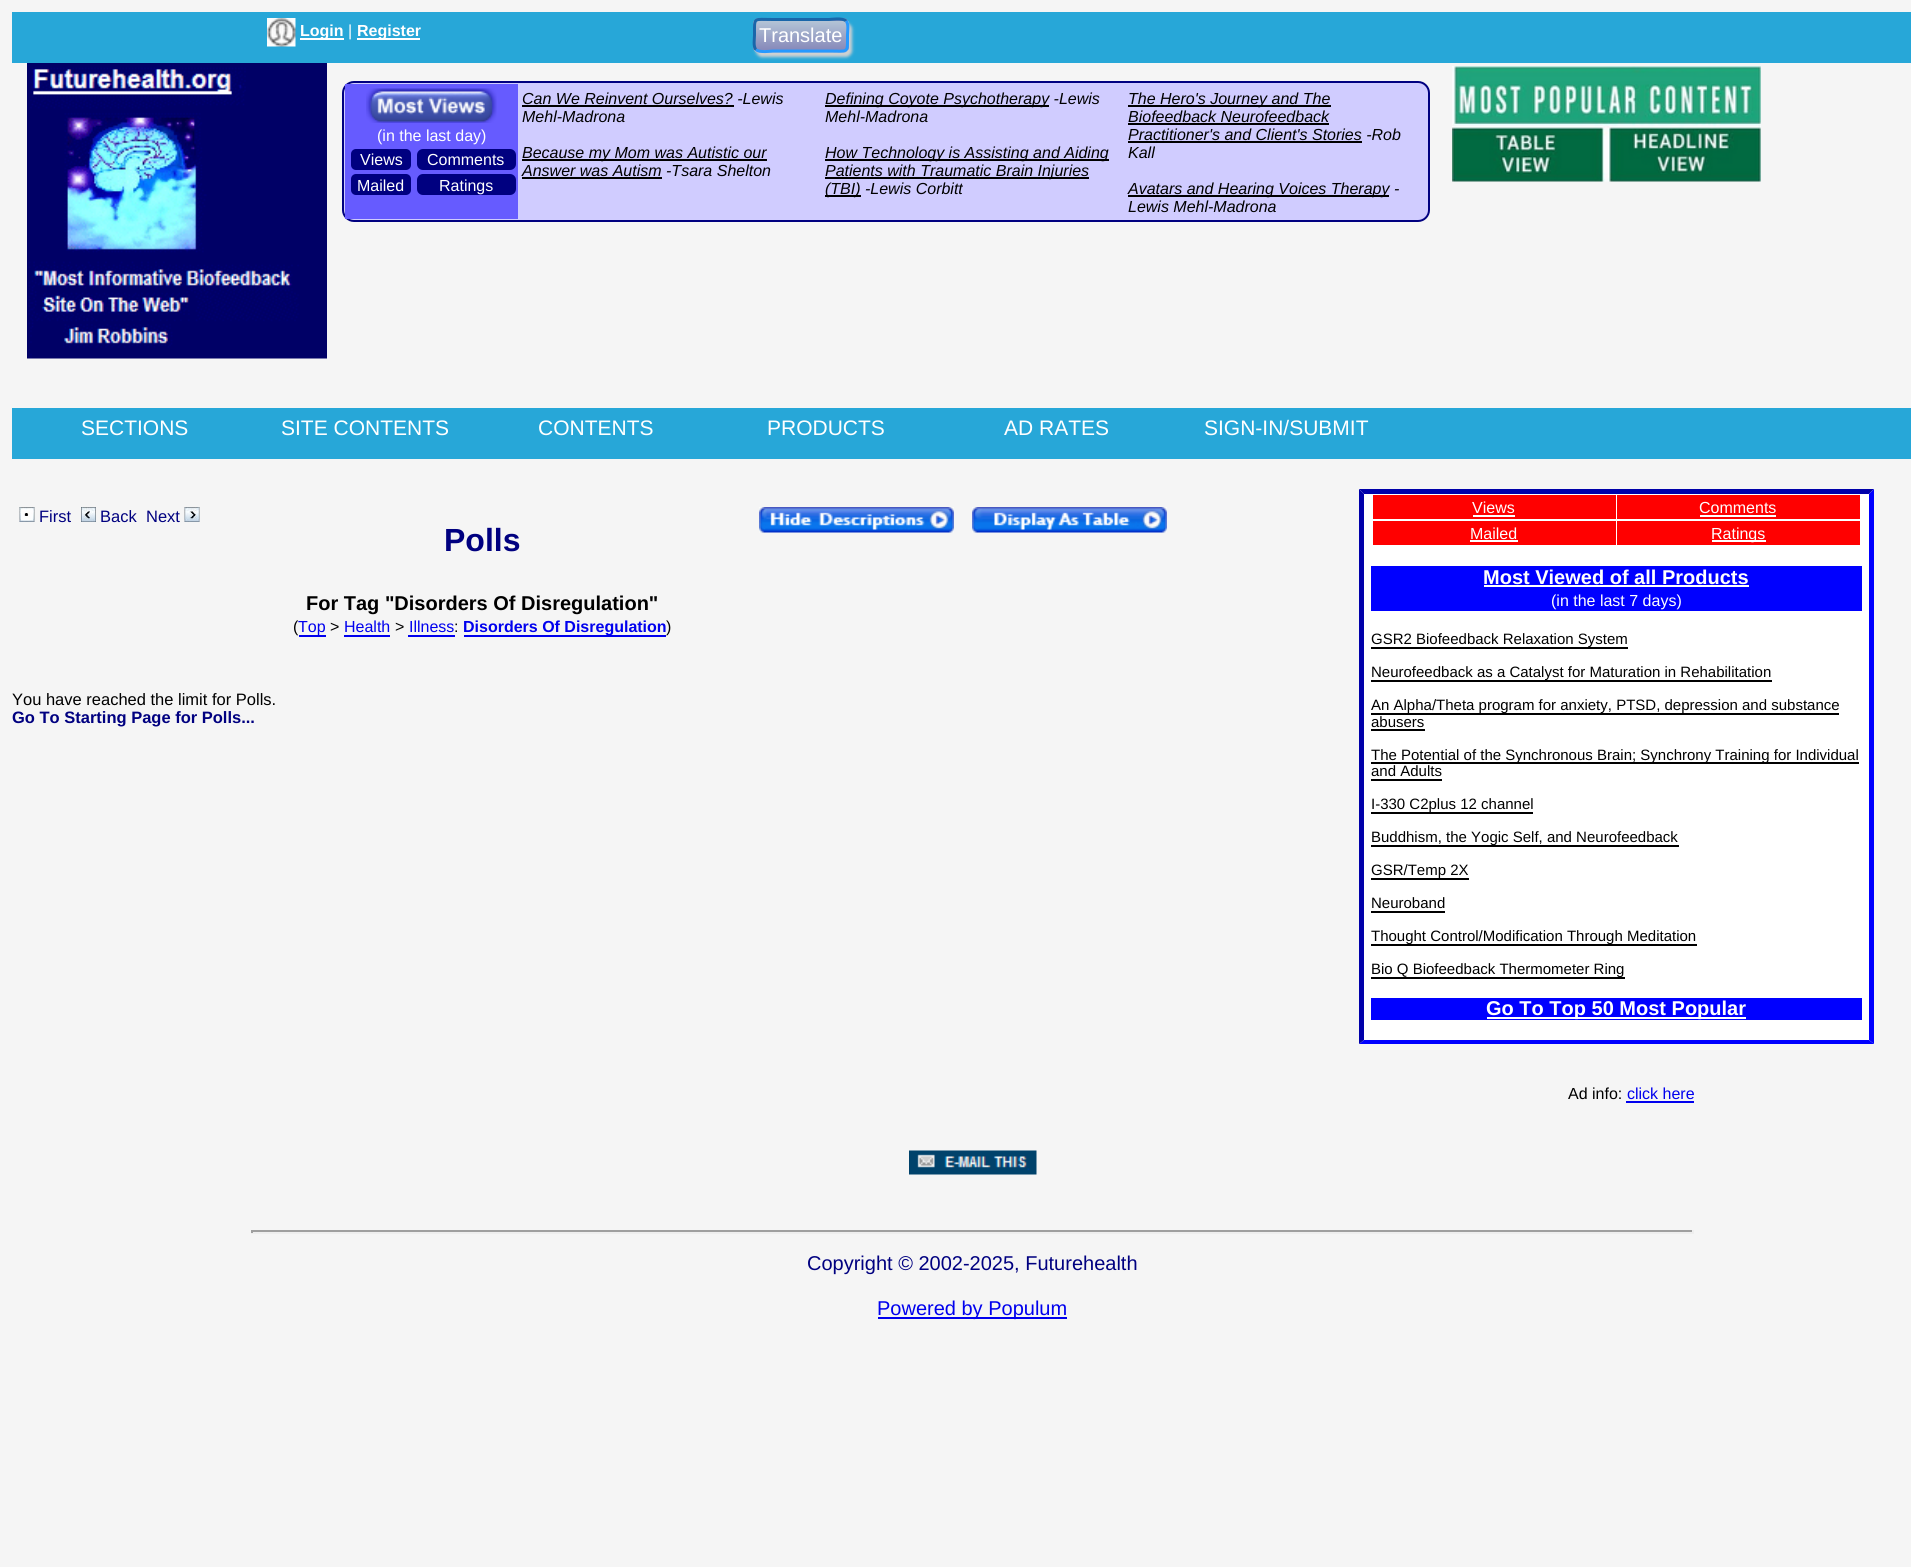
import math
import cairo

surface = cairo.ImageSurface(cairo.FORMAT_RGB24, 1911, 1567)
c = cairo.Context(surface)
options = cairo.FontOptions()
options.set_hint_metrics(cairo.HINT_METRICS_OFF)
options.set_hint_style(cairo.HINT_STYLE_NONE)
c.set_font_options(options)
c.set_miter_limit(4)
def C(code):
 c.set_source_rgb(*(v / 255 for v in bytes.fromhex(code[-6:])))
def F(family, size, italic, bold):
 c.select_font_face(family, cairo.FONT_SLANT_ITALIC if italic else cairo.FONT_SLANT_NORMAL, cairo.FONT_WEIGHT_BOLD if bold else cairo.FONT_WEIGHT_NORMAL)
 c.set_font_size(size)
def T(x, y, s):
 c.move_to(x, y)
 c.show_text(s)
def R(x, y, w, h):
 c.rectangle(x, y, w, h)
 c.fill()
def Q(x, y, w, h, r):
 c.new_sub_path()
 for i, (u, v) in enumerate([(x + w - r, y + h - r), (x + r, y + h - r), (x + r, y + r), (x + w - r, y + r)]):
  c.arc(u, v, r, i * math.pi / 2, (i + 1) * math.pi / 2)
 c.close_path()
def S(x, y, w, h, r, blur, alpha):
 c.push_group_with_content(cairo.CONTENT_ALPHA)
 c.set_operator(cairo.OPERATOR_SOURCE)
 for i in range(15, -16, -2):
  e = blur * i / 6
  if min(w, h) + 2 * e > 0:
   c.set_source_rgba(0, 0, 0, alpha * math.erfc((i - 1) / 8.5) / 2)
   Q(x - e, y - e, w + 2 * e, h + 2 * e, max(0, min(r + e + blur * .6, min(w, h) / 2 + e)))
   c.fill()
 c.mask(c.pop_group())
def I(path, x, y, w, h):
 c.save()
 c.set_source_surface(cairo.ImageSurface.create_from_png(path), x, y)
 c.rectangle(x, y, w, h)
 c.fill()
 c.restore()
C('f5f5f5')
c.paint()
C('27a7d8')
R(12,12,1899,51)
I('1.png',267,18,29,29)
C('ffffff')
R(300,38,44,2)
F('Liberation Sans',16,0,1)
T(300,36,'Login')
F('Liberation Sans',16,0,0)
T(348,36,'|')
R(357,38,63,2)
F('Liberation Sans',16,0,1)
T(357,36,'Register')
C('d1d1d1')
S(756,23,96,34,6,1.5,1)
c.save()
Q(753,18,96,35,6)
c.clip()
gradient = cairo.LinearGradient(801,-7.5,801,21)
gradient.add_color_stop_rgba(0,0.702,0.769,0.839,1)
gradient.add_color_stop_rgba(1,0.529,0.537,0.729,1)
c.set_source(gradient)
R(753,18,96,3)
gradient = cairo.LinearGradient(801,21,801,50)
gradient.add_color_stop_rgba(0,0.702,0.769,0.839,1)
gradient.add_color_stop_rgba(1,0.529,0.537,0.729,1)
c.set_source(gradient)
R(753,21,96,29)
gradient = cairo.LinearGradient(801,50,801,78)
gradient.add_color_stop_rgba(0,0.702,0.769,0.839,1)
gradient.add_color_stop_rgba(1,0.529,0.537,0.729,1)
c.set_source(gradient)
R(753,50,96,3)
c.restore()
c.new_path()
c.move_to(846,21)
c.curve_to(849,23.5,847.5,32,847.5,35)
c.curve_to(847.5,54,849,51,829,51)
c.line_to(773,51)
c.curve_to(772,51,759,53,756,49.5)
C('2699ff')
c.set_line_width(3)
c.stroke()
c.new_path()
c.move_to(756,49.5)
c.curve_to(753,47,754.5,38.5,754.5,35)
c.curve_to(754.5,16.5,753,19.5,773,19.5)
c.line_to(829,19.5)
c.curve_to(830,19.5,843,17.5,846,21)
C('1966aa')
c.stroke()
F('Liberation Sans',20,0,0)
C('ffffff')
T(759,42,'Translate')
I('2.png',27,63,300,296)
C('d0ccff')
Q(343,82,1086,139,11)
c.fill_preserve()
C('000080')
c.set_line_width(2)
c.stroke()
C('665bff')
R(345,84,173,135)
I('3.png',366,88,131,35)
F('Liberation Sans',16,0,0)
C('ffffff')
T(377,141,'(in the last day)')
C('000080')
Q(351,149,60,21,5)
c.fill()
C('ffffff')
T(360,165,'Views')
C('000080')
Q(417,149,99,21,6)
c.fill()
C('ffffff')
T(427,165,'Comments')
C('000080')
Q(351,174,60,21,5)
c.fill()
C('ffffff')
T(357,191,'Mailed')
C('000080')
Q(417,174,99,21,6)
c.fill()
C('ffffff')
T(439,191,'Ratings')
F('Liberation Sans',16,1,0)
C('000000')
T(522,104,'Can We Reinvent Ourselves? -Lewis')
R(522,105,212,2)
T(522,122,'Mehl-Madrona')
R(522,159,245,2)
T(522,158,'Because my Mom was Autistic our')
T(522,176,'Answer was Autism -Tsara Shelton')
R(522,177,140,2)
R(825,105,224,2)
T(825,104,'Defining Coyote Psychotherapy -Lewis')
T(825,122,'Mehl-Madrona')
R(825,159,284,2)
T(825,158,'How Technology is Assisting and Aiding')
R(825,177,264,2)
T(825,176,'Patients with Traumatic Brain Injuries')
R(825,195,36,2)
T(825,194,'(TBI) -Lewis Corbitt')
R(1128,105,203,2)
T(1128,104,'The Hero\'s Journey and The')
T(1128,122,'Biofeedback Neurofeedback')
R(1128,123,201,2)
T(1128,140,'Practitioner\'s and Client\'s Stories -Rob')
R(1128,141,234,2)
T(1128,158,'Kall')
R(1128,195,261,2)
T(1128,194,'Avatars and Hearing Voices Therapy -')
T(1128,212,'Lewis Mehl-Madrona')
I('4.png',1452,66,309,116)
C('27a7d8')
R(12,408,1899,51)
F('Liberation Sans',21,0,0)
C('ffffff')
T(81,435,'SECTIONS')
T(281,435,'SITE CONTENTS')
T(538,435,'CONTENTS')
T(767,435,'PRODUCTS')
T(1004,435,'AD RATES')
T(1204,435,'SIGN-IN/SUBMIT')
I('5.png',19,507,16,15)
F('Liberation Sans',16.5,0,0)
C('000080')
T(39,522,'First')
I('6.png',81,507,15,15)
T(100,522,'Back')
T(146,522,'Next')
I('7.png',184,507,16,15)
I('8.png',759,507,195,26)
I('9.png',972,507,195,26)
F('Liberation Sans',32,0,1)
T(444,551,'Polls')
F('Liberation Sans',20,0,1)
C('000000')
T(306,610,'For Tag "Disorders Of Disregulation"')
F('Liberation Sans',16,0,0)
T(293,632,'(')
C('0000ee')
R(299,635,27,2)
T(298,632,'Top')
C('000000')
T(330,632,'>')
C('0000ee')
T(344,632,'Health')
R(344,635,46,2)
C('000000')
T(395,632,'>')
C('0000ee')
T(409,632,'Illness')
C('000000')
T(454,632,':')
C('0000ee')
R(408,635,47,2)
R(464,635,202,2)
F('Liberation Sans',16,0,1)
T(463,632,'Disorders Of Disregulation')
F('Liberation Sans',16,0,0)
C('000000')
T(666,632,')')
F('Liberation Sans',16.5,0,0)
T(12,705,'You have reached the limit for Polls.')
F('Liberation Sans',16.5,0,1)
C('000080')
T(12,723,'Go To Starting Page for Polls...')
C('ffffff')
R(1359,489,515,555)
C('0000aa')
c.new_path()
c.move_to(1359,489)
c.line_to(1874,489)
c.line_to(1869,494)
c.line_to(1364,494)
c.close_path()
c.fill()
C('0000ff')
c.new_path()
c.move_to(1874,489)
c.line_to(1874,1044)
c.line_to(1869,1040)
c.line_to(1869,494)
c.close_path()
c.fill()
c.new_path()
c.move_to(1874,1044)
c.line_to(1359,1044)
c.line_to(1364,1040)
c.line_to(1869,1040)
c.close_path()
c.fill()
C('0000aa')
c.new_path()
c.move_to(1359,1044)
c.line_to(1359,489)
c.line_to(1364,494)
c.line_to(1364,1040)
c.close_path()
c.fill()
C('ff0000')
R(1373,495,243,24)
F('Liberation Sans',16,0,0)
C('ffffff')
T(1472,513,'Views')
R(1473,515,42,2)
C('ff0000')
R(1617,495,243,24)
C('ffffff')
T(1699,513,'Comments')
R(1700,515,76,2)
C('ff0000')
R(1373,521,243,24)
C('ffffff')
T(1470,539,'Mailed')
R(1470,540,48,2)
C('ff0000')
R(1617,521,243,24)
C('ffffff')
R(1712,540,54,2)
T(1711,539,'Ratings')
C('0000ff')
R(1371,566,491,45)
F('Liberation Sans',20,0,1)
C('ffffff')
T(1483,584,'Most Viewed of all Products')
R(1484,585,265,2)
F('Liberation Sans',16,0,0)
T(1551,606,'(in the last 7 days)')
C('000000')
R(1371,647,257,2)
F('Liberation Sans',15,0,0)
T(1371,644,'GSR2 Biofeedback Relaxation System')
R(1371,680,401,2)
T(1371,677,'Neurofeedback as a Catalyst for Maturation in Rehabilitation')
R(1371,713,468,2)
T(1371,710,'An Alpha/Theta program for anxiety, PTSD, depression and substance')
T(1371,727,'abusers')
R(1371,729,54,2)
R(1371,762,488,2)
T(1371,760,'The Potential of the Synchronous Brain; Synchrony Training for Individual')
T(1371,776,'and Adults')
R(1371,779,71,2)
R(1371,812,162,2)
T(1371,809,'I-330 C2plus 12 channel')
R(1371,845,308,2)
T(1371,842,'Buddhism, the Yogic Self, and Neurofeedback')
R(1371,878,98,2)
T(1371,875,'GSR/Temp 2X')
T(1371,908,'Neuroband')
R(1371,911,74,2)
R(1371,944,326,2)
T(1371,941,'Thought Control/Modification Through Meditation')
R(1371,977,254,2)
T(1371,974,'Bio Q Biofeedback Thermometer Ring')
C('0000ff')
R(1371,998,491,22)
C('ffffff')
R(1487,1017,259,2)
F('Liberation Sans',20,0,1)
T(1486,1015,'Go To Top 50 Most Popular')
F('Liberation Sans',16,0,0)
C('000000')
T(1568,1099,'Ad info:')
C('0000ee')
T(1627,1099,'click here')
R(1626,1101,68,2)
I('10.png',909,1150,128,25)
C('9f9f9f')
R(251,1230,1443,2)
C('eeeeee')
R(1692,1230,2,3)
R(251,1232,1443,2)
C('9f9f9f')
R(251,1230,2,3)
F('Liberation Sans',20,0,0)
C('000080')
T(807,1270,'Copyright © 2002-2025, Futurehealth')
C('0000ee')
R(878,1317,189,2)
T(877,1315,'Powered by Populum')
surface.write_to_png('o.png')
